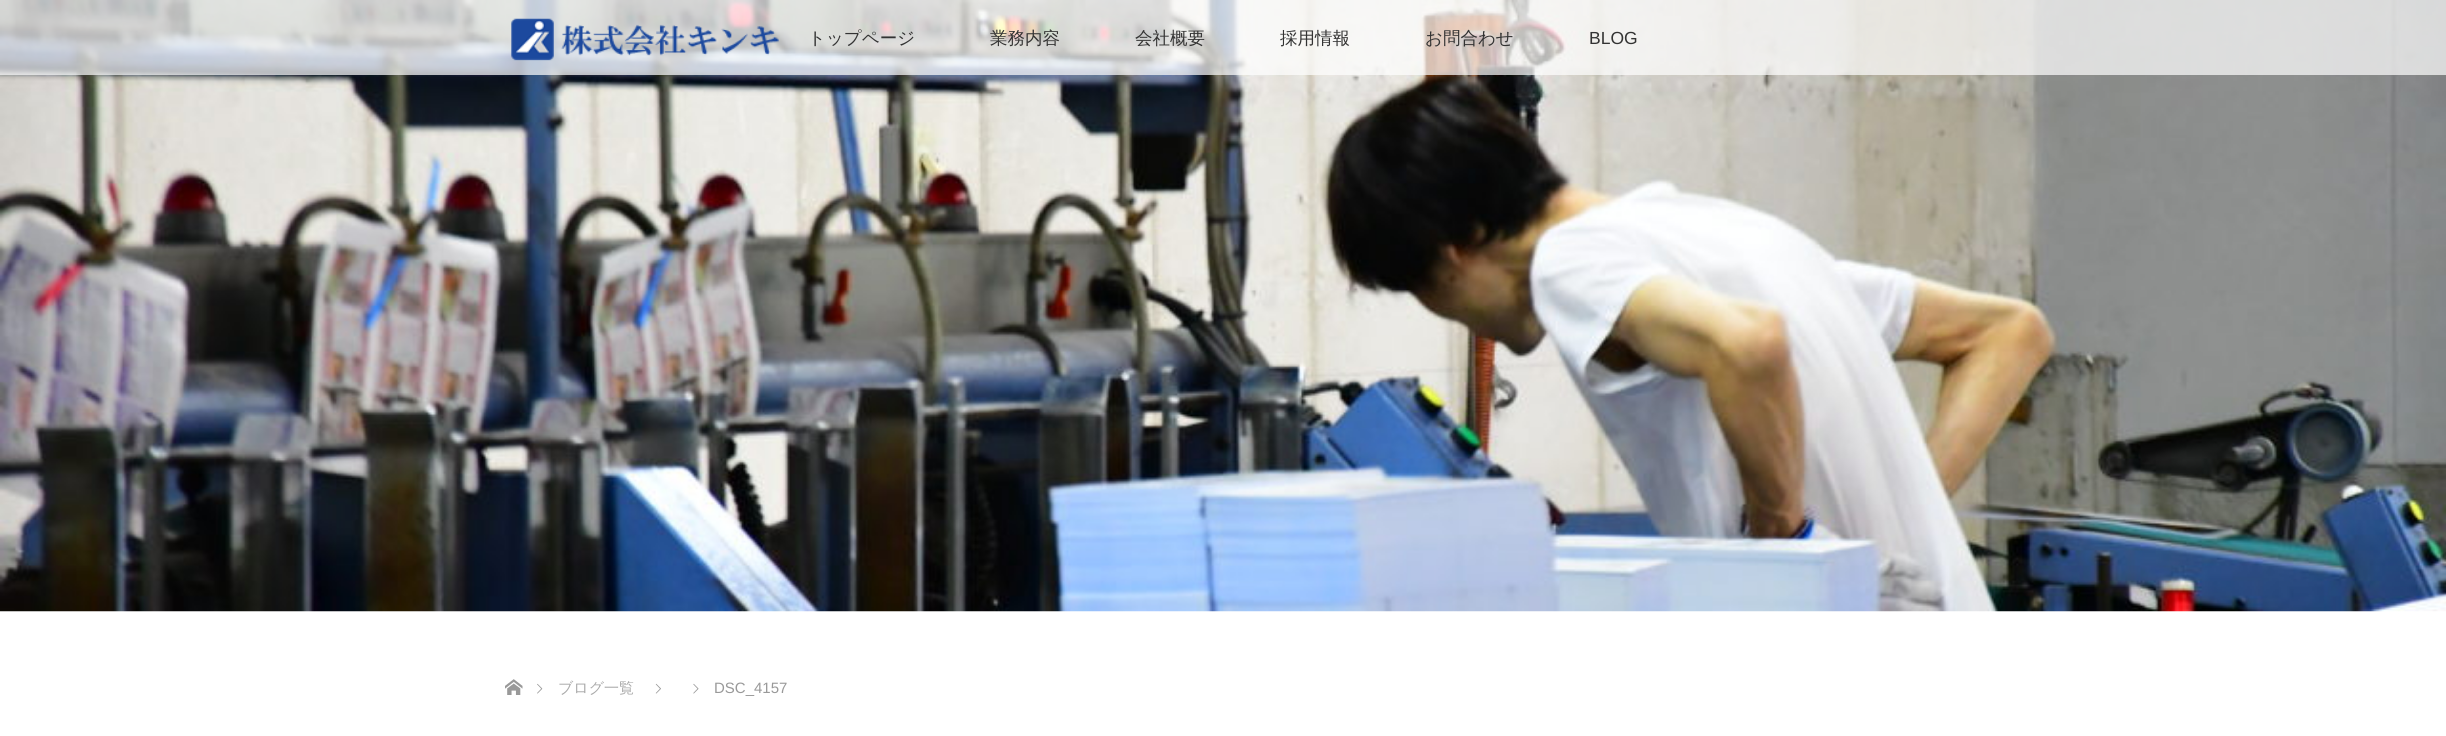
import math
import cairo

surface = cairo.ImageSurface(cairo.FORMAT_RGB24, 2446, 736)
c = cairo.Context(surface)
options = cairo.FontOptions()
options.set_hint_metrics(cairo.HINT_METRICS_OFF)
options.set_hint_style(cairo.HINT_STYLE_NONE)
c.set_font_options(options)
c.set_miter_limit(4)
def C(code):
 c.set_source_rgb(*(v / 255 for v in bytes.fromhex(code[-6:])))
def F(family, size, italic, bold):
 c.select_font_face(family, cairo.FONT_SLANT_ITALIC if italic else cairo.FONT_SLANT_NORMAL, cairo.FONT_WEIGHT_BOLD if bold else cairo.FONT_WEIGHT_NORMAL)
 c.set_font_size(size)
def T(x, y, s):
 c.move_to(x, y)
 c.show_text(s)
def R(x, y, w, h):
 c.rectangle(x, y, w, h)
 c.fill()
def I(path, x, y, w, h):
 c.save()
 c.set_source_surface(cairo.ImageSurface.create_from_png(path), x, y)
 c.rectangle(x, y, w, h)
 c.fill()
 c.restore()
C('ffffff')
c.paint()
I('2.png',0,0,2446,612)
c.set_source_rgba(1,1,1,0.7)
R(0,0,2446,75)
I('1.png',511,18,268,43)
F('WenQuanYi Zen Hei Medium',17.5,0,0)
C('333333')
T(808,44,'トップページ')
T(990,44,'業務内容')
T(1135,44,'会社概要')
T(1280,44,'採用情報')
T(1425,44,'お問合わせ')
F('Liberation Sans',17.5,0,0)
T(1589,44,'BLOG')
I('3.png',505,679,18,16)
I('4.png',537,683,6,11)
F('WenQuanYi Zen Hei Medium',15,0,0)
C('aaaaaa')
T(558,693,'ブログ一覧')
I('5.png',655,683,6,11)
I('6.png',693,683,6,11)
F('Liberation Sans',15,0,0)
C('999999')
T(714,693,'DSC_4157')
surface.write_to_png('o.png')
